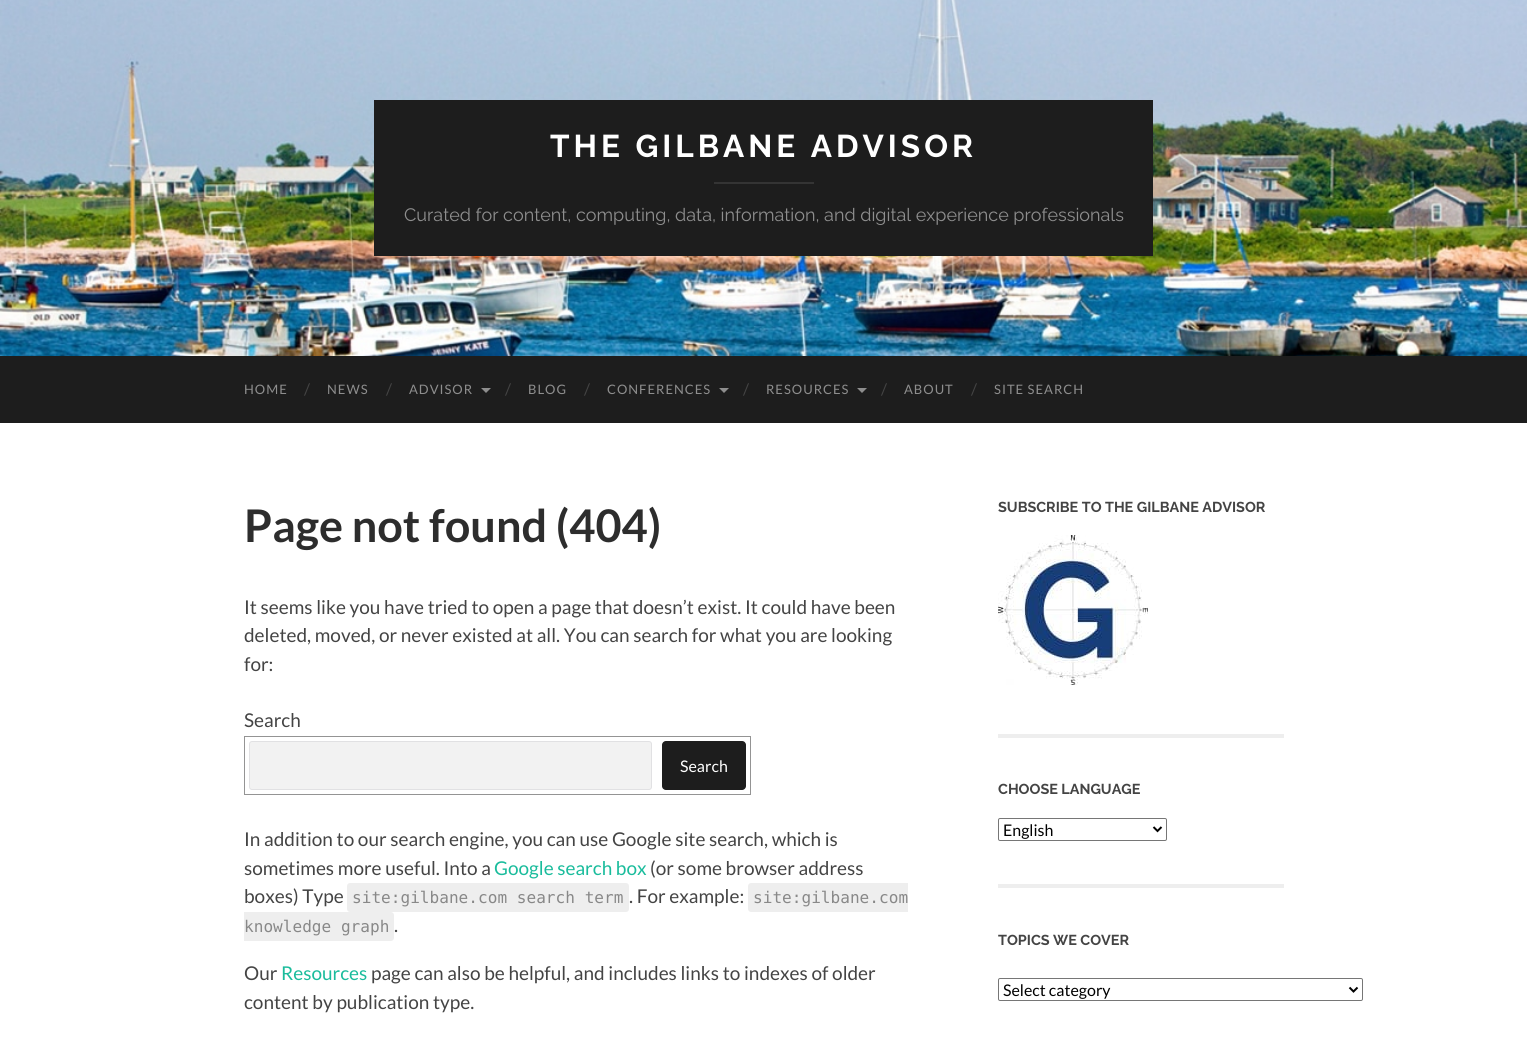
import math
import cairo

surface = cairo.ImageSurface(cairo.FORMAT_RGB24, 1527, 1047)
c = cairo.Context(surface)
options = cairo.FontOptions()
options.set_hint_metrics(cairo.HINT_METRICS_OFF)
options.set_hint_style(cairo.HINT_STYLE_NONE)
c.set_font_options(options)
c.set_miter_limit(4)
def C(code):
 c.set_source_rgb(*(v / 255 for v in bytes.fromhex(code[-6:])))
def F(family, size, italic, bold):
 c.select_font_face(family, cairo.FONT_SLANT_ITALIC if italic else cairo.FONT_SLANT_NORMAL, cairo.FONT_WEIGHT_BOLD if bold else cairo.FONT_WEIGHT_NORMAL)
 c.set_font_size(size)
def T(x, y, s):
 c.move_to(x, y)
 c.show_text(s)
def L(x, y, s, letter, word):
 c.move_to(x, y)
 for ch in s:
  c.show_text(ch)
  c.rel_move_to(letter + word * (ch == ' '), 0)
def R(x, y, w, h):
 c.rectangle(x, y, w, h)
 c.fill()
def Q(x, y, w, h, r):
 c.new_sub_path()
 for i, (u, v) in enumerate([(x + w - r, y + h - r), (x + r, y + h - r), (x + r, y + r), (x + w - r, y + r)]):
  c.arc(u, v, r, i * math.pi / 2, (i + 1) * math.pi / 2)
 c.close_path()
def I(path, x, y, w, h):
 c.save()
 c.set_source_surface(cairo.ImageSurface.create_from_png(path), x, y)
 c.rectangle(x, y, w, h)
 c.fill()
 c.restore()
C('ffffff')
c.paint()
I('1.png',0,0,1527,356)
C('1d1d1d')
R(374,100,779,156)
F('Raleway Thin',31.5,0,0)
C('ffffff')
L(550,157,'THE GILBANE ADVISOR',4,0)
C('343434')
R(714,182,100,2)
F('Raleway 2 Thin',18,0,0)
C('8e8e8e')
T(404,221,'Curated for content, computing, data, information, and digital experience professionals')
C('1d1d1d')
R(0,356,1527,67)
F('Lato',13,0,0)
C('8e8e8e')
L(244,394,'HOME',1,0)
F('Lato',16,0,0)
C('444444')
T(304,395,'/')
F('Lato',13,0,0)
C('8e8e8e')
L(327,394,'NEWS',1,0)
F('Lato',16,0,0)
C('444444')
T(386,395,'/')
F('Lato',13,0,0)
C('8e8e8e')
L(409,394,'ADVISOR',1,0)
c.new_path()
c.move_to(481,388)
c.line_to(491,388)
c.line_to(486,393)
c.close_path()
c.fill()
F('Lato',16,0,0)
C('444444')
T(505,395,'/')
F('Lato',13,0,0)
C('8e8e8e')
L(528,394,'BLOG',1,0)
F('Lato',16,0,0)
C('444444')
T(584,395,'/')
F('Lato',13,0,0)
C('8e8e8e')
L(607,394,'CONFERENCES',1,0)
c.new_path()
c.move_to(719,388)
c.line_to(729,388)
c.line_to(724,393)
c.close_path()
c.fill()
F('Lato',16,0,0)
C('444444')
T(743,395,'/')
F('Lato',13,0,0)
C('8e8e8e')
L(766,394,'RESOURCES',1,0)
c.new_path()
c.move_to(857,388)
c.line_to(867,388)
c.line_to(862,393)
c.close_path()
c.fill()
F('Lato',16,0,0)
C('444444')
T(881,395,'/')
F('Lato',13,0,0)
C('8e8e8e')
L(904,394,'ABOUT',1,0)
F('Lato',16,0,0)
C('444444')
T(971,395,'/')
F('Lato',13,0,0)
C('8e8e8e')
L(994,394,'SITE SEARCH',1,0)
F('Lato',45,0,1)
C('2d2d2d')
T(244,542,'Page not found (404)')
F('Lato',19,0,0)
C('444444')
T(244,614,'It seems like you have tried to open a page that doesn’t exist. It could have been')
T(244,642,'deleted, moved, or never existed at all. You can search for what you are looking')
T(244,671,'for:')
T(244,727,'Search')
c.rectangle(244.5,736.5,506,58)
C('949494')
c.set_line_width(1)
c.stroke()
C('f2f2f2')
Q(249.5,741.5,402,48,2.5)
c.fill_preserve()
C('e1e1e3')
c.stroke()
C('1d1d1d')
Q(662,741,84,49,4)
c.fill()
F('Lato',16,0,0)
C('ffffff')
T(680,772,'Search')
F('Lato',19,0,0)
C('444444')
T(244,846,'In addition to our search engine, you can use Google site search, which is')
T(244,875,'sometimes more useful. Into a')
C('1abc9c')
T(494,875,'Google search box')
C('444444')
T(650,875,'(or some browser address')
T(244,903,'boxes) Type')
C('eeeeee')
Q(347,883,282,29,3)
c.fill()
F('DejaVu Sans Mono',16.1,0,0)
C('888888')
T(352,903,'site:gilbane.com search term')
F('Lato',19,0,0)
C('444444')
T(629,903,'. For example:')
C('eeeeee')
c.new_path()
c.move_to(751,883)
c.line_to(908,883)
c.line_to(908,912)
c.line_to(751,912)
c.curve_to(749.5,912,748,910.5,748,909)
c.line_to(748,886)
c.curve_to(748,884.5,749.5,883,751,883)
c.close_path()
c.fill()
F('DejaVu Sans Mono',16.1,0,0)
C('888888')
T(753,903,'site:gilbane.com')
C('eeeeee')
c.new_path()
c.move_to(244,912)
c.line_to(391,912)
c.curve_to(392.5,912,394,913.5,394,915)
c.line_to(394,938)
c.curve_to(394,939.5,392.5,941,391,941)
c.line_to(244,941)
c.close_path()
c.fill()
C('888888')
T(244,932,'knowledge graph')
F('Lato',19,0,0)
C('444444')
T(394,932,'.')
T(244,980,'Our')
C('1abc9c')
T(281,980,'Resources')
C('444444')
T(371,980,'page can also be helpful, and includes links to indexes of older')
T(244,1009,'content by publication type.')
C('eeeeee')
R(998,734,286,4)
F('Raleway Thin',14.4,0,0)
C('444444')
T(998,512,'SUBSCRIBE TO THE GILBANE ADVISOR')
I('2.png',998,535,150,150)
C('eeeeee')
R(998,884,286,4)
C('444444')
T(998,794,'CHOOSE LANGUAGE')
Q(998.5,818.5,168,22,1.5)
C('767676')
c.stroke()
c.new_path()
c.move_to(1153.5,827)
c.line_to(1157.5,831)
c.line_to(1161.5,827)
C('000000')
c.set_line_width(2)
c.stroke()
F('Lato',16,0,0)
T(1003,836,'English')
F('Raleway Thin',14.4,0,0)
C('444444')
T(998,945,'TOPICS WE COVER')
Q(998.5,978.5,364,22,1.5)
C('767676')
c.set_line_width(1)
c.stroke()
c.new_path()
c.move_to(1349.5,987.5)
c.line_to(1353.5,991.5)
c.line_to(1357.5,987.5)
C('000000')
c.set_line_width(2)
c.stroke()
F('Lato',16,0,0)
T(1003,996,'Select category')
surface.write_to_png('o.png')
